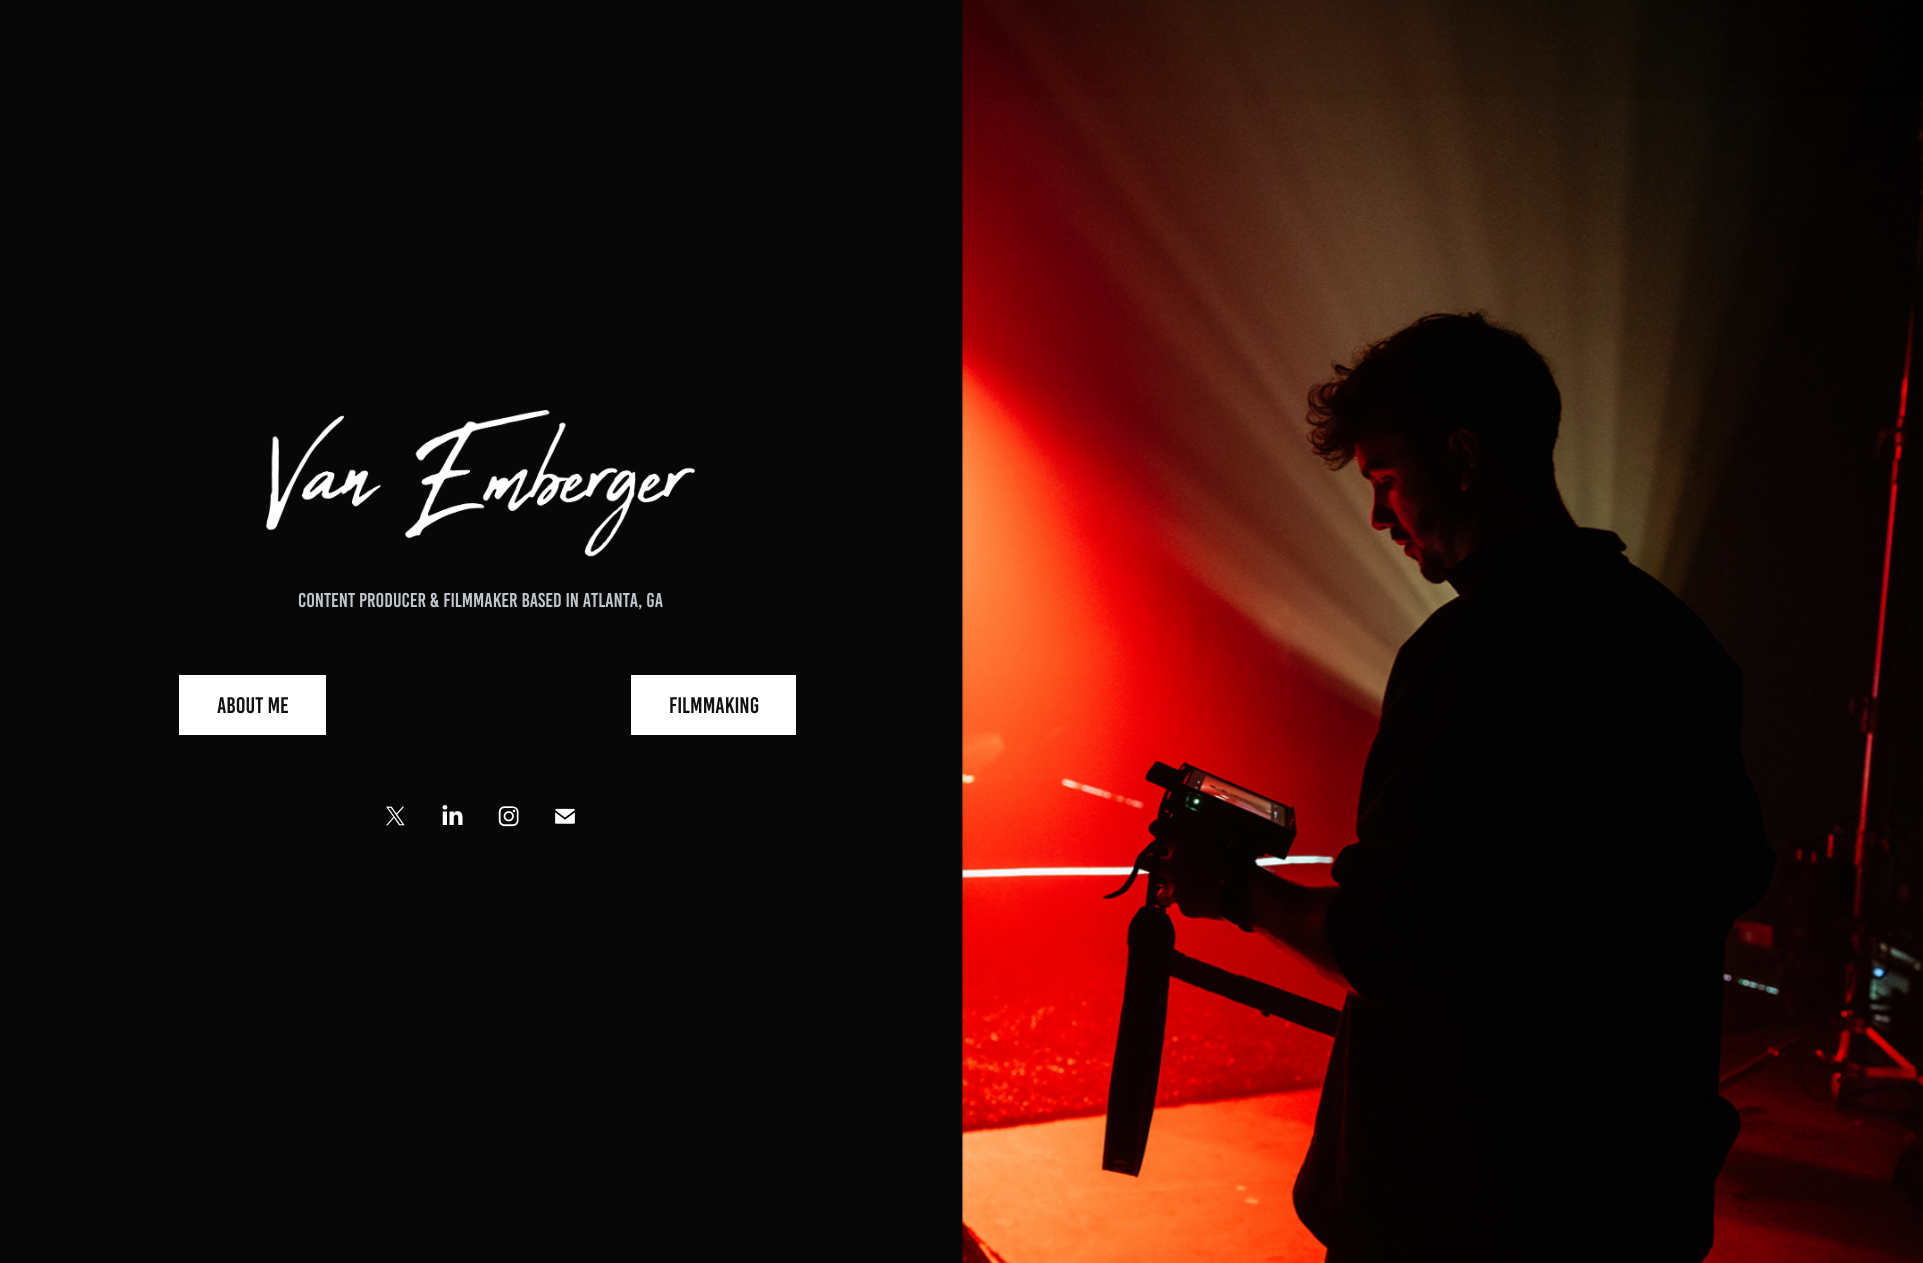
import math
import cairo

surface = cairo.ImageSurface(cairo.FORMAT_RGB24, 1923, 1263)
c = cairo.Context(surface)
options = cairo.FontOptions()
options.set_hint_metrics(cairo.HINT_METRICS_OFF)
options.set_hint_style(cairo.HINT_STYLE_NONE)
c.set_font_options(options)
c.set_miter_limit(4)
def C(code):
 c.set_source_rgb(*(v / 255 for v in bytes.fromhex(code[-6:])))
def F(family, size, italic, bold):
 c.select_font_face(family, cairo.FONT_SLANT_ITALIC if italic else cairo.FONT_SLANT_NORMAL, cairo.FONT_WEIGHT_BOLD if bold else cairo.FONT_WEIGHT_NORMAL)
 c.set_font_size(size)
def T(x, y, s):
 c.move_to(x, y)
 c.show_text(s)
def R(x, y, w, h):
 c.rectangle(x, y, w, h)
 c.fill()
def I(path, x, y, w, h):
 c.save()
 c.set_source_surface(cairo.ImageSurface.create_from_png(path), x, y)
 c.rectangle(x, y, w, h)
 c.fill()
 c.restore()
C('070707')
c.paint()
I('1.png',266,410,429,147)
F('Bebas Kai',20,0,0)
C('c0c6cc')
T(298,607,'COntent Producer & filmmaker based in atlanta, GA')
C('ffffff')
R(179,675,147,60)
F('Bebas Kai',22.5,0,0)
C('111111')
T(217,713,'About me')
C('ffffff')
R(631,675,165,60)
C('111111')
T(669,713,'FILMMAKING')
I('2.png',386,806,19,20)
I('3.png',442,805,21,20)
I('4.png',498,806,21,21)
I('5.png',555,808,20,16)
I('6.png',962,0,961,1263)
surface.write_to_png('o.png')
